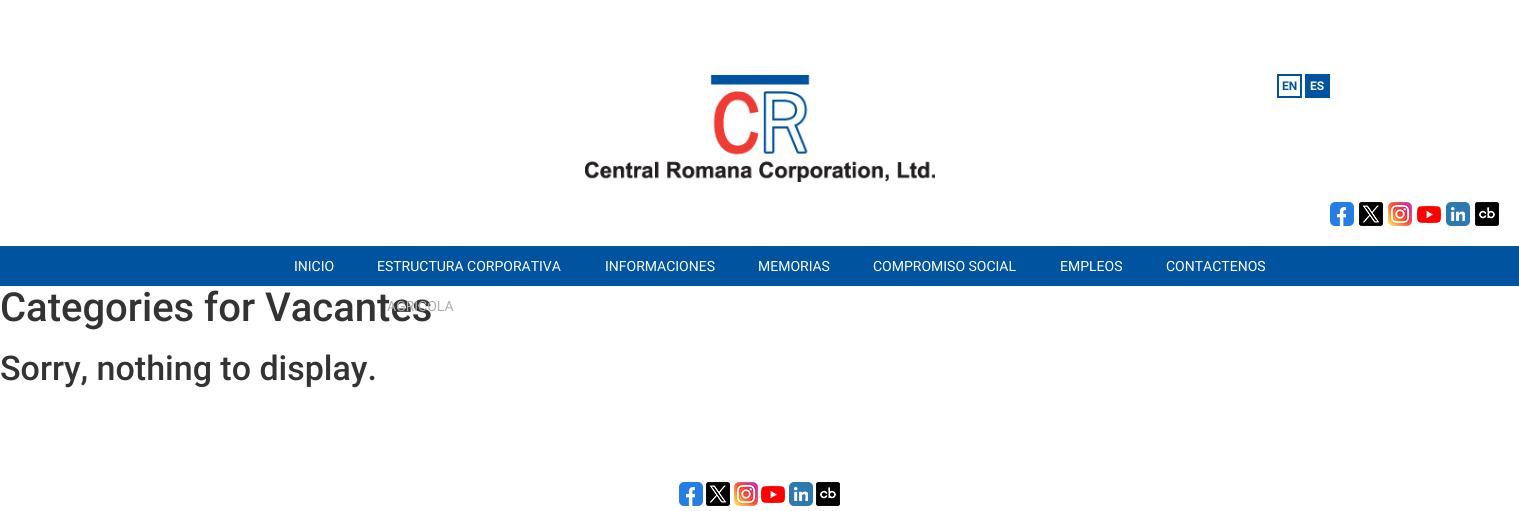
import math
import cairo

surface = cairo.ImageSurface(cairo.FORMAT_RGB24, 1519, 511)
c = cairo.Context(surface)
options = cairo.FontOptions()
options.set_hint_metrics(cairo.HINT_METRICS_OFF)
options.set_hint_style(cairo.HINT_STYLE_NONE)
c.set_font_options(options)
c.set_miter_limit(4)
def C(code):
 c.set_source_rgb(*(v / 255 for v in bytes.fromhex(code[-6:])))
def F(family, size, italic, bold):
 c.select_font_face(family, cairo.FONT_SLANT_ITALIC if italic else cairo.FONT_SLANT_NORMAL, cairo.FONT_WEIGHT_BOLD if bold else cairo.FONT_WEIGHT_NORMAL)
 c.set_font_size(size)
def T(x, y, s):
 c.move_to(x, y)
 c.show_text(s)
def R(x, y, w, h):
 c.rectangle(x, y, w, h)
 c.fill()
def I(path, x, y, w, h):
 c.save()
 c.set_source_surface(cairo.ImageSurface.create_from_png(path), x, y)
 c.rectangle(x, y, w, h)
 c.fill()
 c.restore()
C('ffffff')
c.paint()
I('1.png',585,75,350,107)
c.rectangle(1278,75,23,22)
C('00539f')
c.stroke()
F('Roboto',12,0,1)
T(1282,90,'EN')
R(1305,74,25,24)
C('ffffff')
T(1310,90,'ES')
I('2.png',1330,202,24,24)
I('3.png',1359,202,24,24)
I('4.png',1388,202,24,24)
I('5.png',1417,206,24,17)
I('6.png',1446,202,24,24)
I('7.png',1475,202,24,24)
C('00539f')
R(0,246,1519,40)
F('Roboto',14,0,0)
C('ffffff')
T(294,271,'INICIO')
T(377,271,'ESTRUCTURA CORPORATIVA')
F('Roboto Medium',40,0,0)
C('333333')
T(0,321,'Categories for Vacantes')
F('Roboto',14,0,0)
C('afafaf')
T(387,311,'AGRICOLA')
C('ffffff')
T(605,271,'INFORMACIONES')
T(758,271,'MEMORIAS')
T(873,271,'COMPROMISO SOCIAL')
T(1060,271,'EMPLEOS')
T(1166,271,'CONTACTENOS')
F('Roboto Medium',34,0,0)
C('333333')
T(0,380,'Sorry, nothing to display.')
I('2.png',679,482,24,24)
I('3.png',706,482,24,24)
I('4.png',734,482,24,24)
I('5.png',761,486,24,17)
I('6.png',789,482,24,24)
I('7.png',816,482,24,24)
surface.write_to_png('o.png')
